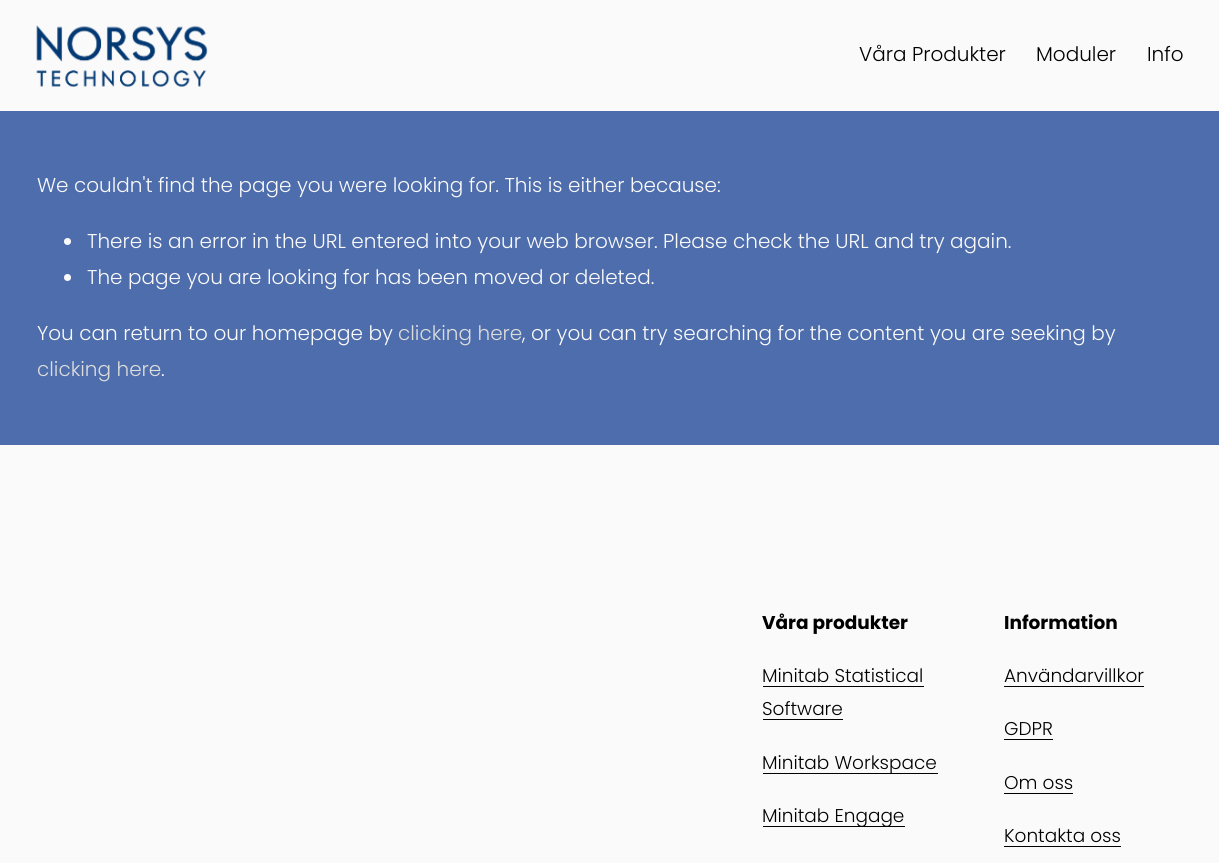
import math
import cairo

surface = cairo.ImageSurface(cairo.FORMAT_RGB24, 1219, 863)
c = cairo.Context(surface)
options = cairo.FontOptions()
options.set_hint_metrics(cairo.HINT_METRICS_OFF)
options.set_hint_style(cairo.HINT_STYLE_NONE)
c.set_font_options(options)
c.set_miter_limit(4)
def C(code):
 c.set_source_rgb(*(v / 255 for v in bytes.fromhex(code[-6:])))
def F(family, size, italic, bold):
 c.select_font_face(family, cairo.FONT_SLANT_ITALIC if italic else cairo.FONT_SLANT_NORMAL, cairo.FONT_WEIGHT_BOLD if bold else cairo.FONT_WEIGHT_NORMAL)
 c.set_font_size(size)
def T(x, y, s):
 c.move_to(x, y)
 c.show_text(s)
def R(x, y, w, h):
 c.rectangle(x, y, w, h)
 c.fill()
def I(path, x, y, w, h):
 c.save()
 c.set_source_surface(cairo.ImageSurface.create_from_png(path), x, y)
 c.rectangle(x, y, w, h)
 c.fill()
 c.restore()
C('4e6dac')
c.paint()
C('fafafa')
R(0,0,1219,111)
I('1.png',36,25,172,62)
F('Poppins Light',20,0,0)
C('000000')
T(859,61,'Våra Produkter')
T(1036,61,'Moduler')
T(1147,61,'Info')
C('fafafa')
T(37,192,'We couldn\'t find the page you were looking for. This is either because:')
c.new_path()
c.arc(67.5,241.5,3.5,0,2 * math.pi)
c.fill()
T(87,248,'There is an error in the URL entered into your web browser. Please check the URL and try again.')
c.new_path()
c.arc(67.5,277.5,3.5,0,2 * math.pi)
c.fill()
T(87,284,'The page you are looking for has been moved or deleted.')
T(37,340,'You can return to our homepage by')
C('dcdcdc')
T(398,340,'clicking here')
C('fafafa')
T(522,340,', or you can try searching for the content you are seeking by')
C('dcdcdc')
T(37,376,'clicking here')
C('fafafa')
T(161,376,'.')
R(0,445,1219,418)
F('Poppins',18.5,0,1)
C('000000')
T(762,629,'Våra produkter')
F('Poppins Light',18.5,0,0)
T(762,682,'Minitab Statistical')
R(763,686,161,1)
T(762,715,'Software')
R(763,719,80,1)
R(763,773,175,1)
T(762,769,'Minitab Workspace')
R(763,826,142,1)
T(762,822,'Minitab Engage')
F('Poppins',18.5,0,1)
T(1004,629,'Information')
F('Poppins Light',18.5,0,0)
T(1004,682,'Användarvillkor')
R(1004,686,140,1)
T(1004,735,'GDPR')
R(1004,739,49,1)
T(1004,789,'Om oss')
R(1004,793,69,1)
T(1004,842,'Kontakta oss')
R(1004,846,117,1)
surface.write_to_png('o.png')
